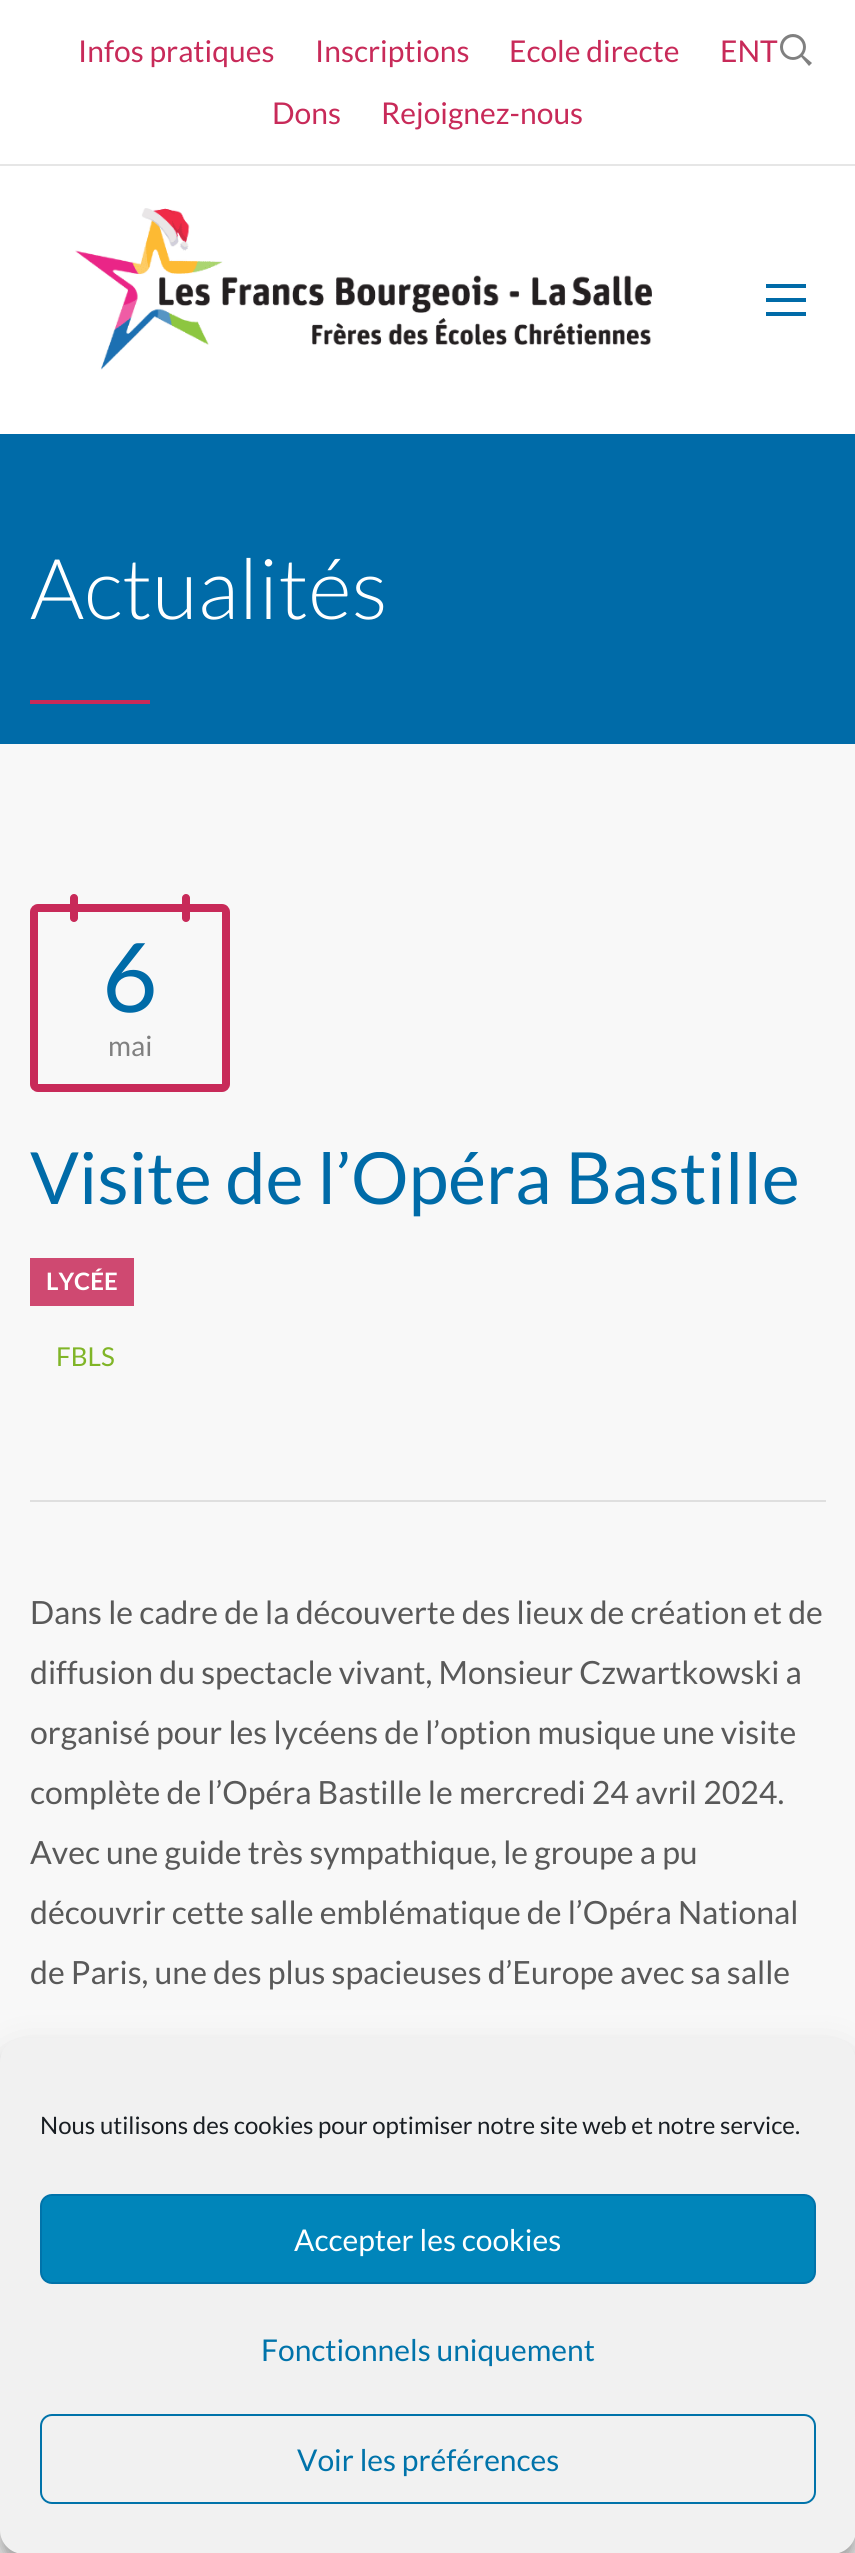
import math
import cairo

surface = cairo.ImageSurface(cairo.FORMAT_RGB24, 855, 2553)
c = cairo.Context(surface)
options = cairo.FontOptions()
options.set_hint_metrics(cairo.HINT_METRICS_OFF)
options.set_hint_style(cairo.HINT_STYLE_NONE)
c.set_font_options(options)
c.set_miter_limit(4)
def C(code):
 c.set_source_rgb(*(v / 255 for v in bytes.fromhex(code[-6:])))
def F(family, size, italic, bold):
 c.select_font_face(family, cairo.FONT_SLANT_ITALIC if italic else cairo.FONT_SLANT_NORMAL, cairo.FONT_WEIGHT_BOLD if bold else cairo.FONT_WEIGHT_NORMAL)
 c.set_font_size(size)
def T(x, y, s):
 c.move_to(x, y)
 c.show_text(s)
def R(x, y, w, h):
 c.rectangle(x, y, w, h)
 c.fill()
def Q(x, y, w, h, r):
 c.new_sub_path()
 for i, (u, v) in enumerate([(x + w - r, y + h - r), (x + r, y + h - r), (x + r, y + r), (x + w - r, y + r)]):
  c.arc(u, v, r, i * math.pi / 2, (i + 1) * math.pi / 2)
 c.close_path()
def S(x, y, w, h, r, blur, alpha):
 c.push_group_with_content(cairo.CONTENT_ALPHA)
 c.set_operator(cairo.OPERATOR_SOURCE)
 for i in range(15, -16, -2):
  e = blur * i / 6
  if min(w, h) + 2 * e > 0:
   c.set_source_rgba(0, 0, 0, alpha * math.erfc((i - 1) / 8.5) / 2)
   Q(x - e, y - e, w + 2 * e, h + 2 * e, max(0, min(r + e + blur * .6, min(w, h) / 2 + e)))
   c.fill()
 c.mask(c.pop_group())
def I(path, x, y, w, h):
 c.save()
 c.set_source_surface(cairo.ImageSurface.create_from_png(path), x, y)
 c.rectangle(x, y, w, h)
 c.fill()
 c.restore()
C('f8f8f8')
c.paint()
C('ffffff')
R(0,0,855,164)
C('e6e6e6')
R(0,164,855,2)
F('Lato',30,0,0)
C('c82a59')
T(78,62,'Infos pratiques')
T(315,62,'Inscriptions')
T(509,62,'Ecole directe')
T(720,62,'ENT')
T(272,124,'Dons')
T(381,124,'Rejoignez-nous')
I('1.png',780,34,32,32)
C('ffffff')
R(0,166,855,268)
I('2.png',75,208,577,162)
C('006ba8')
R(766,298,40,4)
R(766,284,40,4)
R(766,312,40,4)
R(0,434,855,310)
F('Lato Light',84,0,0)
C('ffffff')
T(30,619,'Actualités')
C('c82a59')
R(30,700,120,4)
Q(34,908,192,180,4)
c.set_line_width(8)
c.stroke()
Q(70,894,8,28,4)
c.fill()
Q(182,894,8,28,4)
c.fill()
F('Lato',96,0,0)
C('006ba8')
T(102,1012,'6')
F('Lato',28,0,0)
C('808080')
T(108,1056,'mai')
c.save()
c.rectangle(30,1152,796,350)
c.clip()
F('Lato',72,0,0)
C('006ba8')
T(30,1204,'Visite de l’Opéra Bastille')
c.restore()
C('dfdfdf')
R(30,1500,796,2)
C('cf4971')
R(30,1258,104,48)
F('Lato',24,0,1)
C('ffffff')
T(46,1290,'LYCÉE')
F('Lato',26,0,0)
C('80b527')
T(56,1366,'FBLS')
F('Lato',32,0,0)
C('595959')
T(30,1624,'Dans le cadre de la découverte des lieux de création et de')
T(30,1684,'diffusion du spectacle vivant, Monsieur Czwartkowski a')
T(30,1744,'organisé pour les lycéens de l’option musique une visite')
T(30,1804,'complète de l’Opéra Bastille le mercredi 24 avril 2024.')
T(30,1864,'Avec une guide très sympathique, le groupe a pu')
T(30,1924,'découvrir cette salle emblématique de l’Opéra National')
T(30,1984,'de Paris, une des plus spacieuses d’Europe avec sa salle')
C('000000')
S(0,2050,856,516,24,6,.23)
S(0,2058,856,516,24,20,.19)
C('f1f1f1')
Q(0,2038,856,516,24)
c.fill()
F('Lato',24,0,0)
C('191e23')
T(40,2134,'Nous utilisons des cookies pour optimiser notre site web et notre service.')
C('0085ba')
Q(41,2195,774,88,11)
c.fill_preserve()
C('0073aa')
c.set_line_width(2)
c.stroke()
F('Lato',30,0,0)
C('ffffff')
T(294,2251,'Accepter les cookies')
C('0073aa')
T(261,2361,'Fonctionnels uniquement')
Q(41,2415,774,88,11)
c.stroke()
T(297,2471,'Voir les préférences')
surface.write_to_png('o.png')
